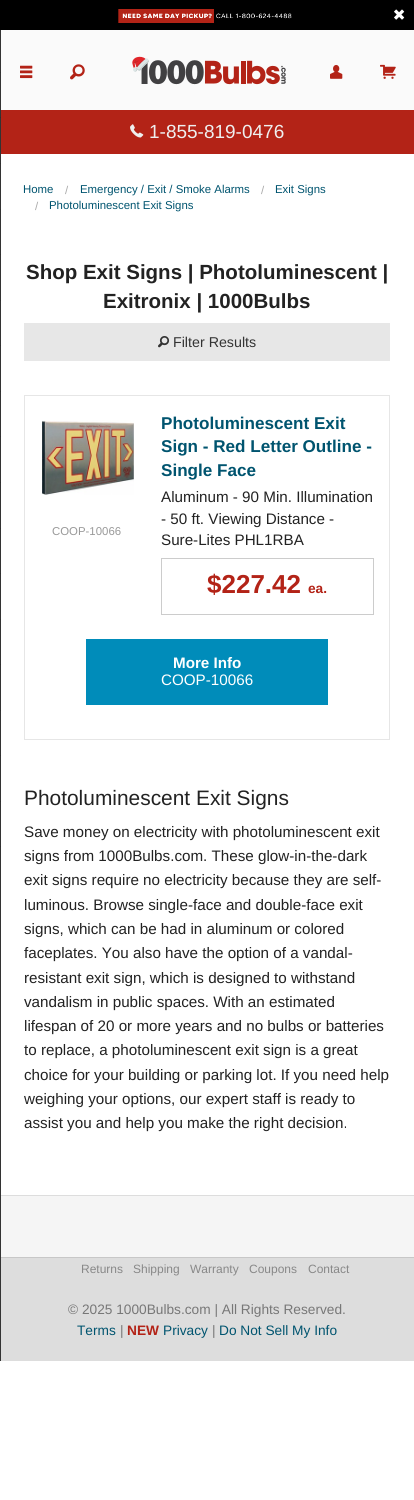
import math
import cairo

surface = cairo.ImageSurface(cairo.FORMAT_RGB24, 414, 1500)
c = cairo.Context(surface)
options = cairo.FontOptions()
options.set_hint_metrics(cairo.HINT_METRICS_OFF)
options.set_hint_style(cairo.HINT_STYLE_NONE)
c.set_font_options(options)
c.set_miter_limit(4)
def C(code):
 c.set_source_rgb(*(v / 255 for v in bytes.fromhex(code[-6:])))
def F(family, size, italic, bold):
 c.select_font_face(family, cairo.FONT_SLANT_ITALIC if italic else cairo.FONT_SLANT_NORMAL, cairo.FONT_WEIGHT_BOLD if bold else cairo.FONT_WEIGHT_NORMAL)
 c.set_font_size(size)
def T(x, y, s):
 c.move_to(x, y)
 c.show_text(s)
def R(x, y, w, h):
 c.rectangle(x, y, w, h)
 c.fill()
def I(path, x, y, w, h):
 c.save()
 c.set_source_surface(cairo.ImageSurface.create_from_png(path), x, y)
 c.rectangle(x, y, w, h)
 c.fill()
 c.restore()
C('ffffff')
c.paint()
C('000000')
R(0,0,414,30)
I('1.png',118,9,174,14)
I('2.png',394,9,11,11)
C('dddddd')
R(0,1195,414,1)
C('c7c7c7')
R(0,1257,414,1)
C('333333')
R(0,30,1,1331)
C('2e2e2e')
R(0,72,1,1)
R(0,117,1,1)
R(0,163,1,1)
R(0,209,1,1)
R(0,254,1,1)
R(0,300,1,1)
R(0,345,1,1)
R(0,391,1,1)
R(0,436,1,1)
R(0,482,1,1)
R(0,528,1,1)
R(0,573,1,1)
R(0,619,1,1)
R(0,664,1,1)
R(0,710,1,1)
R(0,755,1,1)
R(0,801,1,1)
R(0,846,1,1)
C('fafafa')
R(1,30,413,80)
I('3.png',20,65,13,14)
I('4.png',70,64,15,16)
I('5.png',132,56,154,29)
I('6.png',330,64,13,15)
I('7.png',380,64,16,15)
C('b32317')
R(1,110,413,44)
I('8.png',130,124,14,14)
F('Liberation Sans',19,0,0)
C('efefef')
T(149,138,'1-855-819-0476')
F('Liberation Sans',11.4,0,0)
C('00546f')
T(23,193,'Home')
C('aaaaaa')
T(65,194,'/')
C('00546f')
T(80,193,'Emergency / Exit / Smoke Alarms')
C('aaaaaa')
T(261,194,'/')
C('00546f')
T(275,193,'Exit Signs')
C('aaaaaa')
T(35,210,'/')
C('00546f')
T(49,209,'Photoluminescent Exit Signs')
F('Liberation Sans',20.5,0,1)
C('222222')
T(26,279,'Shop Exit Signs | Photoluminescent |')
T(103,308,'Exitronix | 1000Bulbs')
C('e7e7e7')
R(24,323,366,38)
I('9.png',158,336,12,12)
F('Liberation Sans',14.25,0,0)
C('333333')
T(173,347,'Filter Results')
c.rectangle(24.5,395.5,365,344)
C('e6e6e6')
c.set_line_width(1)
c.stroke()
I('10.png',42,420,92,75)
F('Liberation Sans',11.4,0,0)
C('999999')
T(52,535,'COOP-10066')
F('Liberation Sans',17.1,0,1)
C('00546f')
T(161,429,'Photoluminescent Exit')
T(161,452,'Sign - Red Letter Outline -')
T(161,476,'Single Face')
F('Liberation Sans',15.2,0,0)
C('222222')
T(161,502,'Aluminum - 90 Min. Illumination')
T(161,524,'- 50 ft. Viewing Distance -')
T(161,545,'Sure-Lites PHL1RBA')
c.rectangle(161.5,558.5,212,56)
C('cccccc')
c.stroke()
F('Liberation Sans',26,0,1)
C('b32317')
T(207,593,'$227.42')
F('Liberation Sans',13.7,0,1)
T(308,593,'ea.')
C('008cba')
R(86,639,242,66)
F('Liberation Sans',15.2,0,1)
C('ffffff')
T(173,668,'More Info')
F('Liberation Sans',15.2,0,0)
T(161,685,'COOP-10066')
F('Liberation Sans',20.9,0,0)
C('222222')
T(24,805,'Photoluminescent Exit Signs')
F('Liberation Sans',15.2,0,0)
T(24,837,'Save money on electricity with photoluminescent exit')
T(24,861,'signs from 1000Bulbs.com. These glow-in-the-dark')
T(24,885,'exit signs require no electricity because they are self-')
T(24,910,'luminous. Browse single-face and double-face exit')
T(24,934,'signs, which can be had in aluminum or colored')
T(24,958,'faceplates. You also have the option of a vandal-')
T(24,983,'resistant exit sign, which is designed to withstand')
T(24,1007,'vandalism in public spaces. With an estimated')
T(24,1031,'lifespan of 20 or more years and no bulbs or batteries')
T(24,1055,'to replace, a photoluminescent exit sign is a great')
T(24,1080,'choice for your building or parking lot. If you need help')
T(24,1104,'weighing your options, our expert staff is ready to')
T(24,1128,'assist you and help you make the right decision.')
C('dddddd')
R(1,1258,413,103)
C('f5f5f5')
R(1,1196,413,61)
F('Liberation Sans',12,0,0)
C('888888')
T(81,1273,'Returns')
T(133,1273,'Shipping')
T(190,1273,'Warranty')
T(249,1273,'Coupons')
T(308,1273,'Contact')
F('Liberation Sans',13.7,0,0)
C('777777')
T(68,1314,'© 2025 1000Bulbs.com | All Rights Reserved.')
C('00546f')
T(77,1335,'Terms')
C('777777')
T(120,1335,'|')
F('Liberation Sans',13.7,0,1)
C('b32317')
T(127,1335,'NEW')
F('Liberation Sans',13.7,0,0)
C('00546f')
T(163,1335,'Privacy')
C('777777')
T(212,1335,'|')
C('00546f')
T(219,1335,'Do Not Sell My Info')
surface.write_to_png('o.png')
